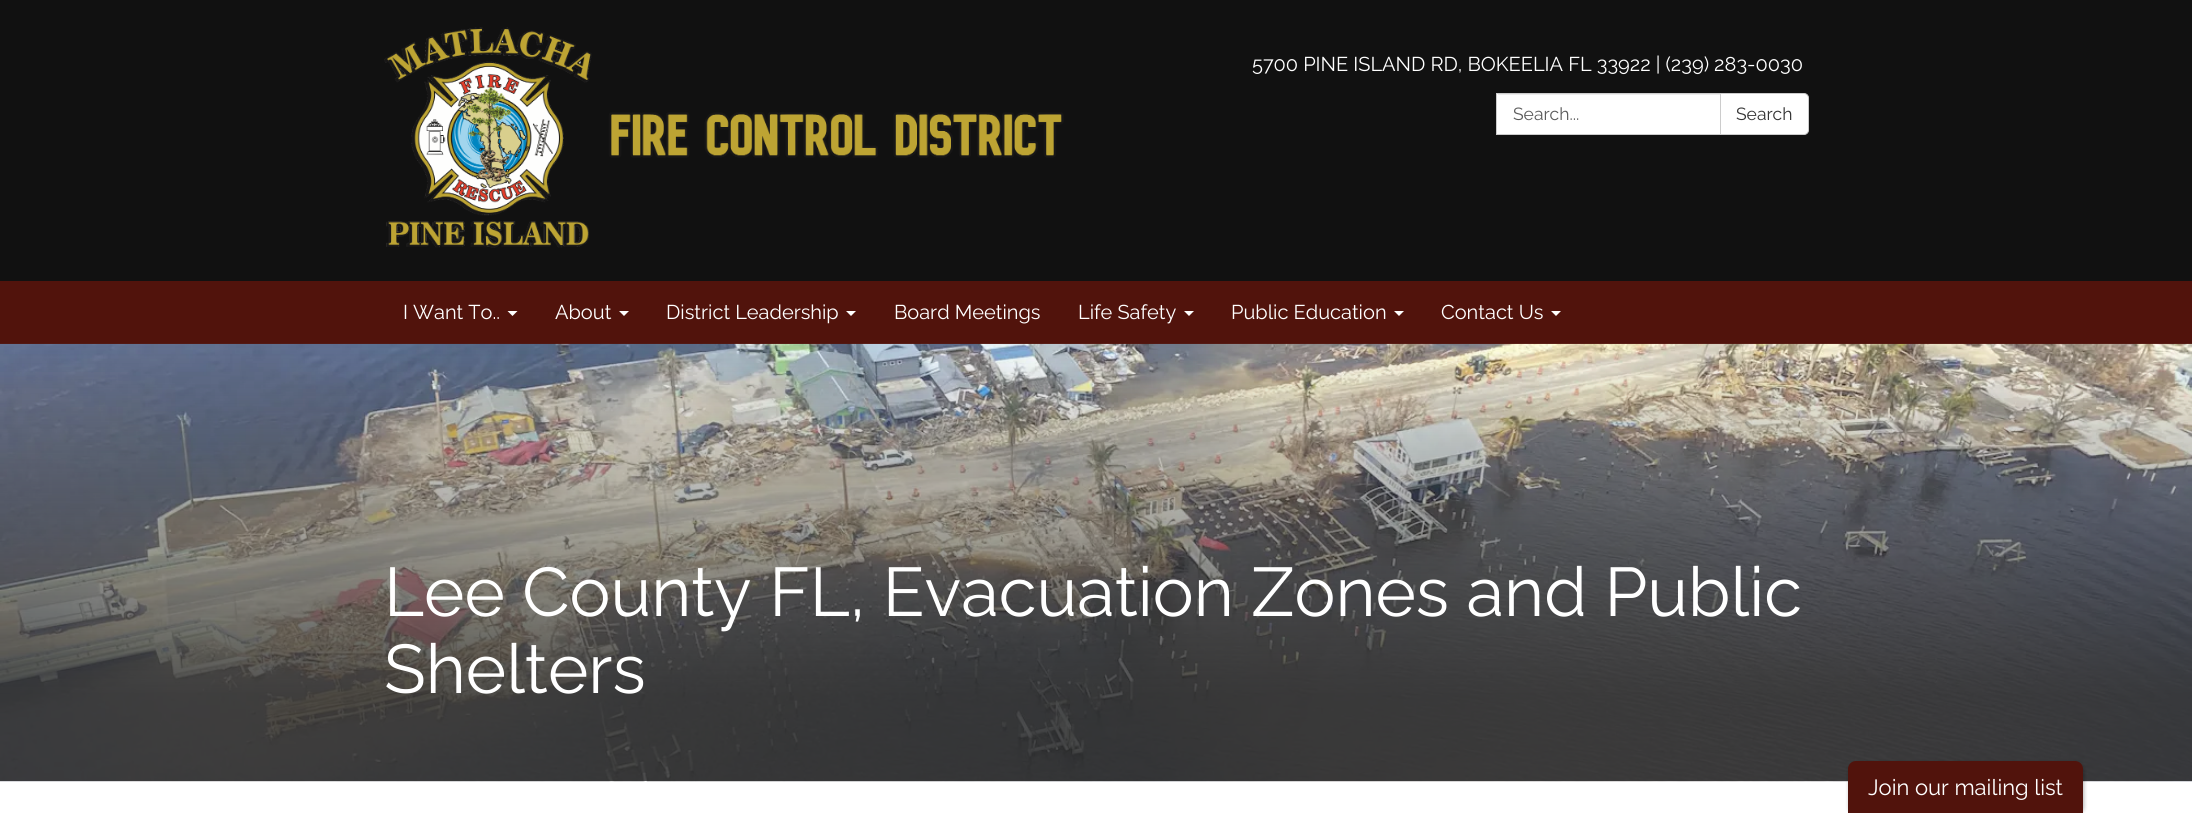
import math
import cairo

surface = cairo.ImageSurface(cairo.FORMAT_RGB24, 2192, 813)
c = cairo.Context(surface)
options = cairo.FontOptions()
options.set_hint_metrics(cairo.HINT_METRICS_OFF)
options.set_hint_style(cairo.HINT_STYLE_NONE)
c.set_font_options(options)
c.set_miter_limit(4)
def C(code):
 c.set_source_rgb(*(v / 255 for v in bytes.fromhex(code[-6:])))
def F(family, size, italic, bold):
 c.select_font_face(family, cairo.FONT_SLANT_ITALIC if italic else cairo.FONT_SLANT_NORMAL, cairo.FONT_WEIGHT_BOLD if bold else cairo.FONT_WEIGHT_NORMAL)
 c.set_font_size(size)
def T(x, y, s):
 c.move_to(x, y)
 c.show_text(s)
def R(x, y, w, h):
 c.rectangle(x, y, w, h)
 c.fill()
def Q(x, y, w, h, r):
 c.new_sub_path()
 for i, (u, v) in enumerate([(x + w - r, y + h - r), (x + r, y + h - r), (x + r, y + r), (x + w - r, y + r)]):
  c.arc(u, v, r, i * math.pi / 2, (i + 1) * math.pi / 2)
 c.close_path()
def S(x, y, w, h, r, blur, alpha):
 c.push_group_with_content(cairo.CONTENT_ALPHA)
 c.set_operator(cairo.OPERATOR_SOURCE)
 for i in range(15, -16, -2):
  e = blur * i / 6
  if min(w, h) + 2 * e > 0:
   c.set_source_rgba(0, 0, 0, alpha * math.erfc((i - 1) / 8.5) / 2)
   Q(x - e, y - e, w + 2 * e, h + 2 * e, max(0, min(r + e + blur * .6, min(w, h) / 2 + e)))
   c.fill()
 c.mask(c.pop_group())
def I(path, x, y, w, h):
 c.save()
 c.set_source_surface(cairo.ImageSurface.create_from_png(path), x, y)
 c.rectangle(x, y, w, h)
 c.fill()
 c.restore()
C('51130c')
c.paint()
C('111111')
R(0,0,2192,281)
I('1.png',384,27,680,221)
F('Raleway',20,0,0)
C('ffffff')
T(1252,71,'5700 PINE ISLAND RD, BOKEELIA FL 33922 | (239) 283-0030')
R(1497,94,223,40)
C('ececec')
R(1498,94,222,1)
c.rectangle(1496.5,93.5,224,41)
C('cccccc')
c.set_line_width(1)
c.stroke()
F('Raleway',17.5,0,0)
C('5b5b5b')
T(1513,120,'Search...')
C('ffffff')
c.new_path()
c.move_to(1720.5,93.5)
c.line_to(1804,93.5)
c.curve_to(1806.5,93.5,1808.5,95.5,1808.5,98)
c.line_to(1808.5,130)
c.curve_to(1808.5,132.5,1806.5,134.5,1804,134.5)
c.line_to(1720.5,134.5)
c.close_path()
c.fill_preserve()
C('cccccc')
c.stroke()
C('333333')
T(1736,120,'Search')
F('Raleway',20,0,0)
C('ffffff')
T(403,319,'I Want To..')
c.new_path()
c.move_to(507.5,311)
c.line_to(517.5,311)
c.line_to(512.5,316)
c.close_path()
c.fill()
T(555,319,'About')
c.new_path()
c.move_to(619,311)
c.line_to(629,311)
c.line_to(624,316)
c.close_path()
c.fill()
T(666,319,'District Leadership')
c.new_path()
c.move_to(846,311)
c.line_to(856,311)
c.line_to(851,316)
c.close_path()
c.fill()
T(894,319,'Board Meetings')
T(1078,319,'Life Safety')
c.new_path()
c.move_to(1184,311)
c.line_to(1194,311)
c.line_to(1189,316)
c.close_path()
c.fill()
T(1231,319,'Public Education')
c.new_path()
c.move_to(1394,311)
c.line_to(1404,311)
c.line_to(1399,316)
c.close_path()
c.fill()
T(1441,319,'Contact Us')
c.new_path()
c.move_to(1551,311)
c.line_to(1561,311)
c.line_to(1556,316)
c.close_path()
c.fill()
R(0,781,2192,32)
I('2.png',0,343,2192,439)
F('Raleway',68.75,0,0)
T(384,616,'Lee County FL, Evacuation Zones and Public')
T(384,693,'Shelters')
C('000000')
S(1849,763,235,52,8,2,.3)
C('51130c')
c.new_path()
c.move_to(1856,761)
c.line_to(2075,761)
c.curve_to(2079.5,761,2083,764.5,2083,769)
c.line_to(2083,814)
c.line_to(1848,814)
c.line_to(1848,769)
c.curve_to(1848,764.5,1851.5,761,1856,761)
c.close_path()
c.fill()
F('Raleway',22,0,0)
C('ffffff')
T(1868,795,'Join our mailing list')
surface.write_to_png('o.png')
